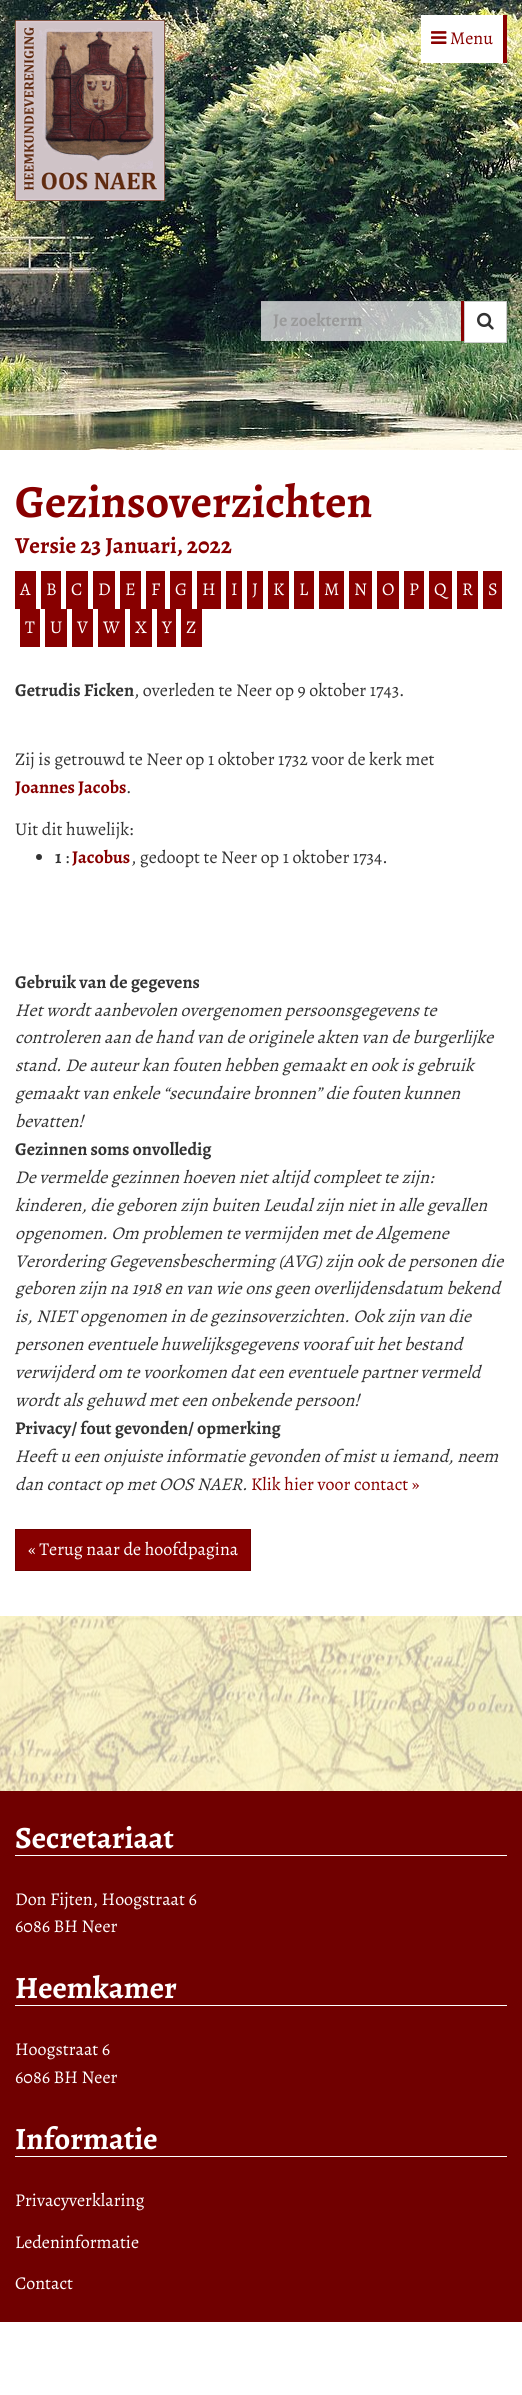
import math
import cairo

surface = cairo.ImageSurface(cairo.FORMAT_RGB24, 522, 2395)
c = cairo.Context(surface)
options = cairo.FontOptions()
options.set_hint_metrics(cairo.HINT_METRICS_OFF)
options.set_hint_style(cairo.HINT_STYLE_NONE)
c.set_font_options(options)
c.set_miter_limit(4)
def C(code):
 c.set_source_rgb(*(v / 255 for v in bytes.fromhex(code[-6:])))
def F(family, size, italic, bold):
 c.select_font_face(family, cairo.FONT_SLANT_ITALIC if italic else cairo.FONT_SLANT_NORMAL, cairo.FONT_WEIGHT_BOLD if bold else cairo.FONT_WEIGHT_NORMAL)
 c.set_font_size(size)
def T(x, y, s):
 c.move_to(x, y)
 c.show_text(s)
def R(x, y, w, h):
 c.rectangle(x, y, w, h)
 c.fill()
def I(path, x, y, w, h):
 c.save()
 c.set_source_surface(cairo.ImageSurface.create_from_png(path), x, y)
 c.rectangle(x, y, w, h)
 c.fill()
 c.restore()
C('ffffff')
c.paint()
I('2.png',0,0,522,450)
C('ffffff')
R(421,15,82,48)
C('880000')
R(503,15,4,48)
I('1.png',431,31,16,13)
F('Alegreya',18,0,0)
T(450,44,'Menu')
I('3.png',15,20,150,181)
c.set_source_rgba(1,1,1,0.7)
R(505,63,2,1)
c.set_source_rgba(0.933,0.933,0.933,0.7)
R(505,63,2,1)
c.set_source_rgba(1,1,1,0.7)
R(261,301,200,40)
c.set_source_rgba(0,0,0,0.07)
R(261,301,200,1)
C('880000')
R(461,301,3,40)
F('Alegreya',18,0,1)
C('999999')
T(273,326,'Je zoekterm')
C('ffffff')
c.rectangle(464.5,301.5,42,41)
c.fill_preserve()
C('cccccc')
c.set_line_width(1)
c.stroke()
I('4.png',477,312,17,18)
F('Alegreya',46,0,1)
C('880000')
T(15,517,'Gezinsoverzichten')
F('Alegreya',23,0,1)
T(15,553,'Versie 23 Januari, 2022')
R(15,571,21,38)
F('Alegreya',18,0,0)
C('ffffff')
T(20,595,'A')
C('880000')
R(41,571,20,38)
C('ffffff')
T(46,595,'B')
C('880000')
R(66,571,22,38)
C('ffffff')
T(71,595,'C')
C('880000')
R(93,571,22,38)
C('ffffff')
T(98,595,'D')
C('880000')
R(120,571,21,38)
C('ffffff')
T(125,595,'E')
C('880000')
R(146,571,19,38)
C('ffffff')
T(151,595,'F')
C('880000')
R(170,571,22,38)
C('ffffff')
T(175,595,'G')
C('880000')
R(197,571,24,38)
C('ffffff')
T(202,595,'H')
C('880000')
R(226,571,16,38)
C('ffffff')
T(231,595,'I')
C('880000')
R(247,571,16,38)
C('ffffff')
T(252,595,'J')
C('880000')
R(268,571,21,38)
C('ffffff')
T(273,595,'K')
C('880000')
R(294,571,20,38)
C('ffffff')
T(299,595,'L')
C('880000')
R(319,571,25,38)
C('ffffff')
T(324,595,'M')
C('880000')
R(349,571,23,38)
C('ffffff')
T(354,595,'N')
C('880000')
R(377,571,22,38)
C('ffffff')
T(382,595,'O')
C('880000')
R(404,571,20,38)
C('ffffff')
T(409,595,'P')
C('880000')
R(429,571,23,38)
C('ffffff')
T(434,595,'Q')
C('880000')
R(457,571,21,38)
C('ffffff')
T(462,595,'R')
C('880000')
R(483,571,19,38)
C('ffffff')
T(488,595,'S')
C('880000')
R(20,609,20,38)
C('ffffff')
T(25,633,'T')
C('880000')
R(45,609,22,38)
C('ffffff')
T(50,633,'U')
C('880000')
R(72,609,21,38)
C('ffffff')
T(77,633,'V')
C('880000')
R(98,609,27,38)
C('ffffff')
T(103,633,'W')
C('880000')
R(130,609,22,38)
C('ffffff')
T(135,633,'X')
C('880000')
R(157,609,19,38)
C('ffffff')
T(162,633,'Y')
C('880000')
R(181,609,21,38)
C('ffffff')
T(186,633,'Z')
F('Alegreya',18,0,1)
C('333333')
T(15,696,'Getrudis Ficken')
F('Alegreya',18,0,0)
T(134,696,', overleden te Neer op 9 oktober 1743.')
T(15,765,'Zij is getrouwd te Neer op 1 oktober 1732 voor de kerk met')
F('Alegreya',18,0,1)
C('880000')
T(15,793,'Joannes Jacobs')
F('Alegreya',18,0,0)
C('333333')
T(126,793,'.')
T(15,835,'Uit dit huwelijk:')
c.new_path()
c.arc(39,857,3,0,2 * math.pi)
c.fill()
F('Alegreya',18,0,1)
T(55,863,'1')
F('Alegreya',18,0,0)
T(65,863,':')
F('Alegreya',18,0,1)
C('880000')
T(72,863,'Jacobus')
F('Alegreya',18,0,0)
C('333333')
T(131,863,', gedoopt te Neer op 1 oktober 1734.')
F('Alegreya',18,0,1)
T(15,988,'Gebruik van de gegevens')
F('Alegreya',18,1,0)
T(15,1016,'Het wordt aanbevolen overgenomen persoonsgegevens te')
T(15,1043,'controleren aan de hand van de originele akten van de burgerlijke')
T(15,1071,'stand. De auteur kan fouten hebben gemaakt en ook is gebruik')
T(15,1099,'gemaakt van enkele “secundaire bronnen” die fouten kunnen')
T(15,1127,'bevatten!')
F('Alegreya',18,0,1)
T(15,1155,'Gezinnen soms onvolledig')
F('Alegreya',18,1,0)
T(15,1183,'De vermelde gezinnen hoeven niet altijd compleet te zijn:')
T(15,1211,'kinderen, die geboren zijn buiten Leudal zijn niet in alle gevallen')
T(15,1239,'opgenomen. Om problemen te vermijden met de Algemene')
T(15,1267,'Verordering Gegevensbescherming (AVG) zijn ook de personen die')
T(15,1294,'geboren zijn na 1918 en van wie ons geen overlijdensdatum bekend')
T(15,1322,'is, NIET opgenomen in de gezinsoverzichten. Ook zijn van die')
T(15,1350,'personen eventuele huwelijksgegevens vooraf uit het bestand')
T(15,1378,'verwijderd om te voorkomen dat een eventuele partner vermeld')
T(15,1406,'wordt als gehuwd met een onbekende persoon!')
F('Alegreya',18,0,1)
T(15,1434,'Privacy/ fout gevonden/ opmerking')
F('Alegreya',18,1,0)
T(15,1462,'Heeft u een onjuiste informatie gevonden of mist u iemand, neem')
T(15,1490,'dan contact op met OOS NAER.')
F('Alegreya',18,0,0)
C('880000')
T(251,1490,'Klik hier voor contact »')
c.rectangle(15.5,1529.5,235,41)
c.fill_preserve()
C('6f0000')
c.stroke()
C('ffffff')
T(28,1555,'« Terug naar de hoofdpagina')
C('700000')
R(0,1791,522,531)
I('5.png',0,1616,522,175)
C('ffffff')
R(15,1855,492,1)
F('Alegreya',31,0,1)
T(15,1848,'Secretariaat')
F('Alegreya',18,0,0)
T(15,1905,'Don Fijten, Hoogstraat 6')
T(15,1932,'6086 BH Neer')
R(15,2005,492,1)
F('Alegreya',31,0,1)
T(15,1998,'Heemkamer')
F('Alegreya',18,0,0)
T(15,2055,'Hoogstraat 6')
T(15,2083,'6086 BH Neer')
R(15,2156,492,1)
F('Alegreya',31,0,1)
T(15,2149,'Informatie')
F('Alegreya',18,0,0)
T(15,2206,'Privacyverklaring')
T(15,2248,'Ledeninformatie')
T(15,2289,'Contact')
surface.write_to_png('o.png')
